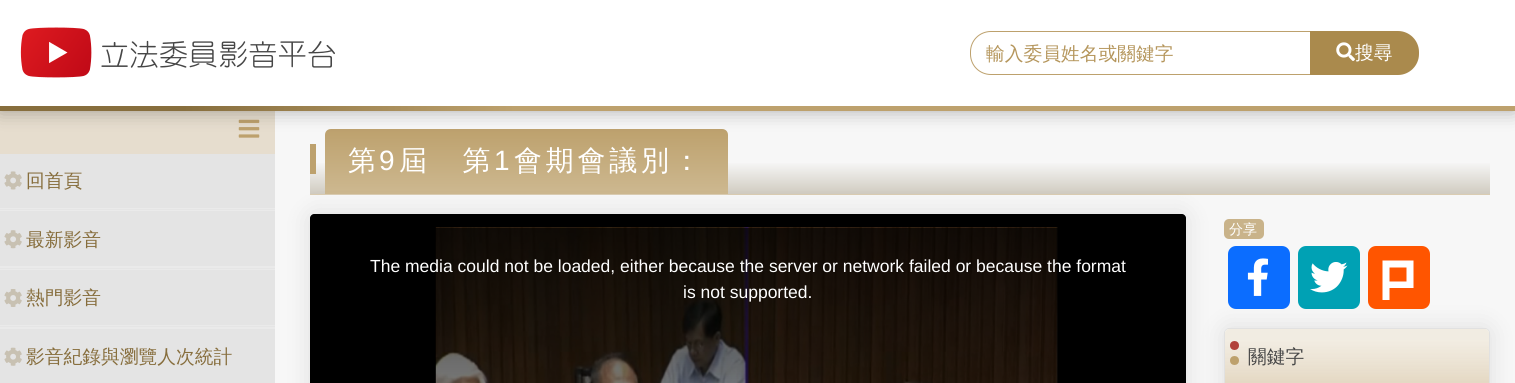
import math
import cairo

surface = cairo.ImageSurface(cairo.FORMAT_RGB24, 1515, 383)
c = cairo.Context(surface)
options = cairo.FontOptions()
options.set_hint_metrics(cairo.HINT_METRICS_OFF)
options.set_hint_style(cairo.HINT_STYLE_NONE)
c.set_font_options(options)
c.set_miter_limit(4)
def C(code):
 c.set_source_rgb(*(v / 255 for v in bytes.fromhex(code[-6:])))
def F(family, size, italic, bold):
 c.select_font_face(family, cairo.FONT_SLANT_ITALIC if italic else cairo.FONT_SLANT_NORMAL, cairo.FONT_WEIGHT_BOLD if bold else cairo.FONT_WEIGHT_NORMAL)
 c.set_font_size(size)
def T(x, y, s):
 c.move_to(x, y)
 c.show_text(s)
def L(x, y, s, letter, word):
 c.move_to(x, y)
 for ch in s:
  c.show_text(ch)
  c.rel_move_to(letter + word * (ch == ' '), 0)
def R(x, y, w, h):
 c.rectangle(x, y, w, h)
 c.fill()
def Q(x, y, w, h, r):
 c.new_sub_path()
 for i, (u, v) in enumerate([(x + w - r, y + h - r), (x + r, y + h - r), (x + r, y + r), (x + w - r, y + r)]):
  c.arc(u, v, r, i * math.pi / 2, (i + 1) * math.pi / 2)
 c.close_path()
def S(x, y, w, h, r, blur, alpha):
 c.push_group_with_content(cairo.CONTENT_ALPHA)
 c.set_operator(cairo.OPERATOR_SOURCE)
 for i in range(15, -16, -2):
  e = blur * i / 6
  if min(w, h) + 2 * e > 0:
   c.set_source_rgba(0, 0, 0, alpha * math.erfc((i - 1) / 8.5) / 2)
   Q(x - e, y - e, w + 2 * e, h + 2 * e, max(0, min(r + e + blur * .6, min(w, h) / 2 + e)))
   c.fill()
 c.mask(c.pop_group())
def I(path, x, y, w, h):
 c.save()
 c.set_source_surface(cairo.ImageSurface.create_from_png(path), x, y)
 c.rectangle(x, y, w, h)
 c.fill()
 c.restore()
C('f7f7f7')
c.paint()
C('e6ddce')
R(0,111,275,43)
I('3.png',238,119,22,19)
gradient = cairo.LinearGradient(900,129,900,194)
gradient.add_color_stop_rgba(.5,0.969,0.969,0.969,1)
gradient.add_color_stop_rgba(1,0.816,0.796,0.753,1)
c.set_source(gradient)
R(310,163,1180,31)
gradient = cairo.LinearGradient(526,129,526,194)
gradient.add_color_stop_rgba(0,0.741,0.631,0.427,1)
gradient.add_color_stop_rgba(1,0.804,0.722,0.565,1)
c.set_source(gradient)
c.new_path()
c.move_to(331,129)
c.line_to(722,129)
c.curve_to(725.5,129,728,131.5,728,135)
c.line_to(728,194)
c.line_to(325,194)
c.line_to(325,135)
c.curve_to(325,131.5,327.5,129,331,129)
c.close_path()
c.fill()
C('000000')
S(0,0,1515,111,0,9.5,.3)
gradient = cairo.LinearGradient(0,56,1515,56)
gradient.add_color_stop_rgba(.12,0.529,0.431,0.239,1)
gradient.add_color_stop_rgba(.34,0.741,0.631,0.427,1)
c.set_source(gradient)
R(0,106,1515,5)
C('ffffff')
R(0,0,1515,106)
I('1.png',20,27,315,51)
c.new_path()
c.move_to(991,31.5)
c.line_to(1310.5,31.5)
c.line_to(1310.5,74.5)
c.line_to(991,74.5)
c.curve_to(979.5,74.5,970.5,65.5,970.5,54)
c.line_to(970.5,52)
c.curve_to(970.5,40.5,979.5,31.5,991,31.5)
c.close_path()
C('bda16d')
c.set_line_width(1)
c.stroke()
F('WenQuanYi Zen Hei Medium',18.75,0,0)
C('b5965c')
T(986,60,'輸入委員姓名或關鍵字')
C('aa8a4d')
c.new_path()
c.move_to(1310,31)
c.line_to(1398,31)
c.curve_to(1409.5,31,1419,40.5,1419,52)
c.line_to(1419,54)
c.curve_to(1419,65.5,1409.5,75,1398,75)
c.line_to(1310,75)
c.close_path()
c.fill()
I('2.png',1336,42,19,19)
C('ffffff')
T(1355,59,'搜尋')
C('eaeaea')
R(0,208,275,121)
C('e5e5e5')
R(0,209,275,1)
C('e4e4e4')
R(0,154,275,54)
I('4.png',4,171,18,19)
C('876e3d')
T(26,187,'回首頁')
C('e5e5e5')
R(0,268,275,1)
C('e4e4e4')
R(0,211,275,55)
I('5.png',4,230,18,19)
C('876e3d')
T(26,246,'最新影音')
C('e5e5e5')
R(0,326,275,1)
C('e4e4e4')
R(0,270,275,55)
I('6.png',4,289,18,18)
C('876e3d')
T(26,304,'熱門影音')
C('e4e4e4')
R(0,329,275,54)
I('7.png',4,347,18,19)
C('876e3d')
T(26,363,'影音紀錄與瀏覽人次統計')
C('daccb2')
R(310,194,1180,1)
C('bda16d')
R(310,144,6,30)
F('WenQuanYi Zen Hei Medium',28,0,0)
C('ffffff')
L(348,170,'第',3.75,0)
F('Liberation Sans',28,0,0)
L(379,170,'9',3.75,0)
F('WenQuanYi Zen Hei Medium',28,0,0)
L(399,170,'屆　第',3.75,0)
F('Liberation Sans',28,0,0)
L(494,170,'1',3.75,0)
F('WenQuanYi Zen Hei Medium',28,0,0)
L(514,170,'會期會議別：',3.75,0)
C('000000')
S(310,214,876,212,5,12.5,.1)
C('000000')
c.new_path()
c.move_to(314,214)
c.line_to(1182,214)
c.curve_to(1184,214,1186,216,1186,218)
c.line_to(1186,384)
c.line_to(310,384)
c.line_to(310,218)
c.curve_to(310,216,312,214,314,214)
c.close_path()
c.fill()
I('8.png',435,227,623,1)
I('9.png',435,227,623,156)
gradient = cairo.LinearGradient(748,227,748,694)
gradient.add_color_stop_rgba(0,0,0,0,.8)
gradient.add_color_stop_rgba(1,0,0,0,0)
c.set_source(gradient)
R(435,228,623,155)
F('Liberation Sans',17.5,0,0)
C('ffffff')
T(370,272,'The media could not be loaded, either because the server or network failed or because the format')
T(683,298,'is not supported.')
C('c9b38a')
Q(1224,219,40,20,5)
c.fill()
F('WenQuanYi Zen Hei Medium',14,0,0)
C('ffffff')
T(1229,234,'分享')
C('0b6dff')
Q(1228,246,62,63,8)
c.fill()
I('10.png',1247,258,21,38)
C('00a1b4')
Q(1298,246,62,63,8)
c.fill()
I('11.png',1310,262,38,31)
C('ff5500')
Q(1368,246,62,63,8)
c.fill()
C('ffffff')
c.new_path()
c.move_to(1382.5,260.5)
c.line_to(1382.5,300)
c.line_to(1389.5,300)
c.line_to(1389.5,288)
c.line_to(1413.5,288)
c.line_to(1413.5,260.5)
c.close_path()
c.move_to(1406.5,281.5)
c.line_to(1389.5,281.5)
c.line_to(1389.5,267.5)
c.line_to(1406.5,267.5)
c.close_path()
c.fill()
C('000000')
S(1224,328,266,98,5,12.5,.1)
C('ffffff')
c.new_path()
c.move_to(1229,328)
c.line_to(1485,328)
c.curve_to(1488,328,1490,330,1490,333)
c.line_to(1490,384)
c.line_to(1224,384)
c.line_to(1224,333)
c.curve_to(1224,330,1226,328,1229,328)
c.close_path()
c.fill()
Q(1224.5,328.5,265,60,4.5)
c.set_source_rgba(0,0,0,0.12)
c.stroke()
gradient = cairo.LinearGradient(1357,329,1357,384)
gradient.add_color_stop_rgba(.2,0.898,0.855,0.773,.5)
gradient.add_color_stop_rgba(1,0.867,0.808,0.702,.8)
c.set_source(gradient)
c.new_path()
c.move_to(1229,329)
c.line_to(1485,329)
c.curve_to(1487,329,1489,331,1489,333)
c.line_to(1489,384)
c.line_to(1225,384)
c.line_to(1225,333)
c.curve_to(1225,331,1227,329,1229,329)
c.close_path()
c.fill()
C('b1423a')
c.arc(1234.5,345.5,4.5,0,2 * math.pi)
c.fill()
C('bda16d')
c.arc(1234.5,360.5,4.5,0,2 * math.pi)
c.fill()
F('WenQuanYi Zen Hei Medium',18.75,0,0)
C('474747')
T(1248,363,'關鍵字')
surface.write_to_png('o.png')
